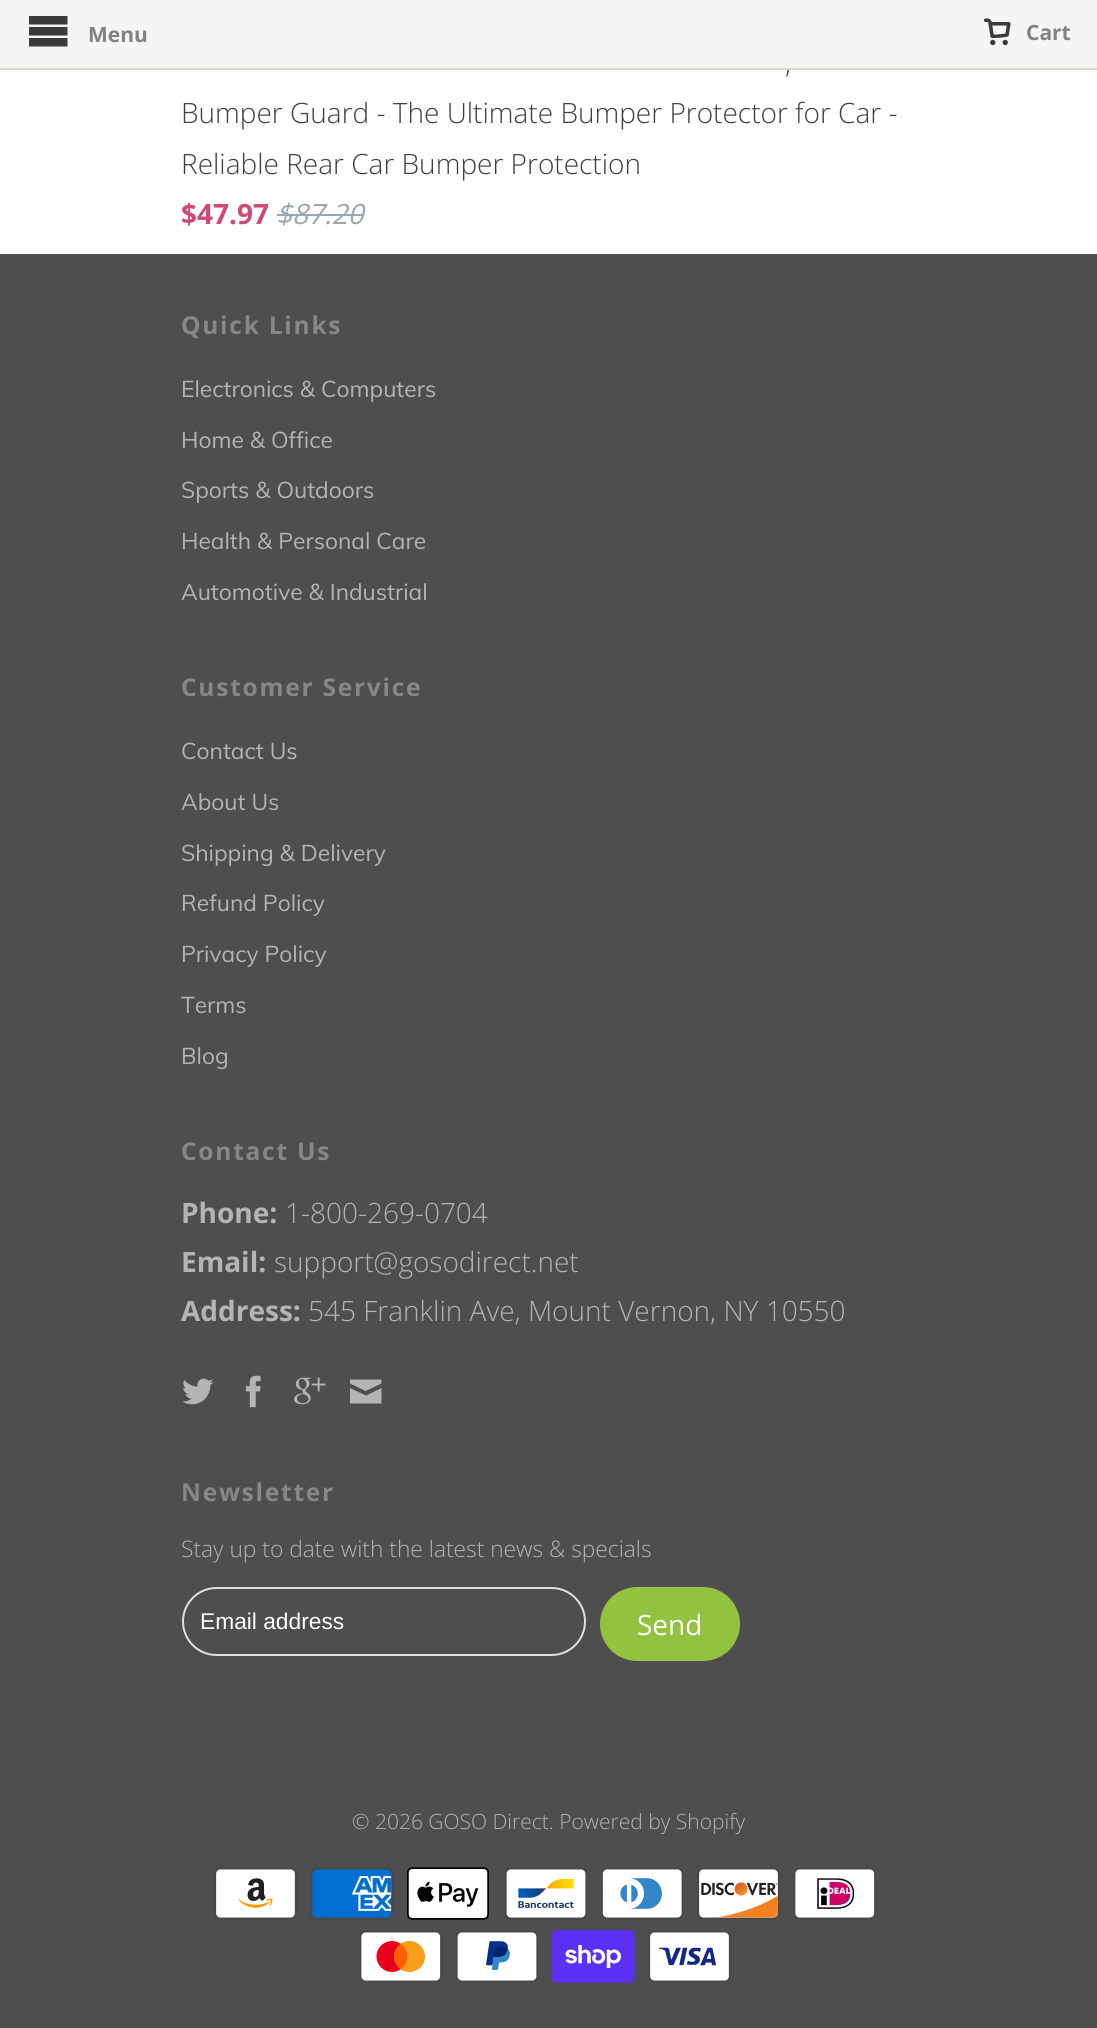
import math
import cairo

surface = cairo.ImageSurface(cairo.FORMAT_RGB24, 1097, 2028)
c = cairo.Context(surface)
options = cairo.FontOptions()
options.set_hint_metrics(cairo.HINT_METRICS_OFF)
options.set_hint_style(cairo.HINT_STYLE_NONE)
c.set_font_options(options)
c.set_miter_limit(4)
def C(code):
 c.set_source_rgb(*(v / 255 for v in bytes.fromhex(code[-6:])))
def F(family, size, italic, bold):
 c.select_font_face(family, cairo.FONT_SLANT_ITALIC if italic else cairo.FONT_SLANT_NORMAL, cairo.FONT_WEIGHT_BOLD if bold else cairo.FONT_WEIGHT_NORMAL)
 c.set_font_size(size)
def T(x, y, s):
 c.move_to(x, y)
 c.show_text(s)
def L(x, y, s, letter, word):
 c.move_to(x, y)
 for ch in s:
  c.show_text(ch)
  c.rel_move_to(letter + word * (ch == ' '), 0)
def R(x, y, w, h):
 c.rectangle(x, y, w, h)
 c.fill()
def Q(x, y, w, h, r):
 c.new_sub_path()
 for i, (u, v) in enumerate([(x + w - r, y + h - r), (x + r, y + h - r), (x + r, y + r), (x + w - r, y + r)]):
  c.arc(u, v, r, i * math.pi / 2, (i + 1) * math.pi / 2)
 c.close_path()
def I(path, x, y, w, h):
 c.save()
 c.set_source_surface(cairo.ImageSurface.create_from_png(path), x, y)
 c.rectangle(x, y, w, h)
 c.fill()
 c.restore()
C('ffffff')
c.paint()
F('Open Sans Light',28,0,0)
C('404040')
T(785,73,',')
c.set_source_rgba(0.961,0.961,0.961,0.95)
R(0,0,1097,70)
c.set_source_rgba(0.871,0.839,0.78,0.95)
R(0,68,1097,2)
C('3a3a3a')
c.new_path()
c.move_to(29,16)
c.line_to(29,24.5)
c.line_to(67.5,24.5)
c.line_to(67.5,16)
c.close_path()
c.move_to(29,27)
c.line_to(29,35.5)
c.line_to(67.5,35.5)
c.line_to(67.5,27)
c.close_path()
c.move_to(29,38)
c.line_to(29,46.5)
c.line_to(67.5,46.5)
c.line_to(67.5,38)
c.close_path()
c.fill()
F('Open Sans',21,0,1)
C('828282')
T(88,42,'Menu')
I('1.png',983,18,28,28)
T(1026,40,'Cart')
F('Open Sans Light',28,0,0)
C('404040')
T(181,123,'Bumper Guard - The Ultimate Bumper Protector for Car -')
T(181,174,'Reliable Rear Car Bumper Protection')
F('Open Sans',28,0,1)
C('d14871')
T(181,224,'$47.97')
F('Open Sans',28,1,0)
C('9da6ae')
T(276,224,'$87.20')
R(277,214,87,2)
C('4e4d4f')
R(0,254,1097,1774)
F('Open Sans',24.5,0,1)
C('878688')
L(181,334,'Quick Links',1.75,0)
F('Muli',22.75,0,0)
C('b5b4b5')
T(181,397,'Electronics & Computers')
T(181,448,'Home & Office')
T(181,498,'Sports & Outdoors')
T(181,549,'Health & Personal Care')
T(181,600,'Automotive & Industrial')
F('Open Sans',24.5,0,1)
C('878688')
L(181,696,'Customer Service',1.75,0)
F('Muli',22.75,0,0)
C('b5b4b5')
T(181,759,'Contact Us')
T(181,810,'About Us')
T(181,861,'Shipping & Delivery')
T(181,911,'Refund Policy')
T(181,962,'Privacy Policy')
T(181,1013,'Terms')
T(181,1064,'Blog')
F('Open Sans',24.5,0,1)
C('878688')
L(181,1160,'Contact Us',1.75,0)
F('Open Sans',28,0,1)
C('b5b4b5')
T(181,1223,'Phone:')
F('Open Sans Light',28,0,0)
T(285,1223,'1-800-269-0704')
F('Open Sans',28,0,1)
T(181,1272,'Email:')
F('Open Sans Light',28,0,0)
T(274,1272,'support@gosodirect.net')
F('Open Sans',28,0,1)
T(181,1321,'Address:')
F('Open Sans Light',28,0,0)
T(308,1321,'545 Franklin Ave, Mount Vernon, NY 10550')
I('2.png',182,1378,32,27)
I('3.png',245,1375,16,33)
I('4.png',294,1377,32,28)
c.new_path()
c.move_to(365.5,1391)
c.line_to(350,1383.5)
c.line_to(350,1379.5)
c.line_to(381.5,1379.5)
c.line_to(381.5,1383.5)
c.close_path()
c.move_to(366,1395.5)
c.line_to(381.5,1388)
c.line_to(381.5,1403.5)
c.line_to(350,1403.5)
c.line_to(350,1388)
c.close_path()
c.fill()
F('Open Sans',24.5,0,1)
C('878688')
L(181,1501,'Newsletter',1.75,0)
F('Open Sans Light',22.75,0,0)
C('b5b4b5')
T(181,1557,'Stay up to date with the latest news & specials')
Q(183,1588,402,67,33.5)
C('dce0e0')
c.stroke()
F('Liberation Sans',22.75,0,0)
C('ffffff')
T(200,1629,'Email address')
C('93c140')
Q(600,1587,140,74,37)
c.fill()
F('Open Sans',28,0,0)
C('ffffff')
T(637,1635,'Send')
F('Open Sans Light',21,0,0)
C('b5b4b5')
T(352,1829,'© 2026 GOSO Direct. Powered by Shopify')
I('5.png',214,1867,83,53)
I('6.png',310,1867,83,53)
I('7.png',407,1867,82,53)
I('8.png',505,1867,82,53)
I('9.png',601,1867,83,53)
I('10.png',697,1867,83,53)
I('11.png',793,1867,83,53)
I('12.png',359,1930,83,53)
I('13.png',456,1930,82,53)
I('14.png',551,1930,84,53)
I('15.png',648,1930,83,53)
surface.write_to_png('o.png')
